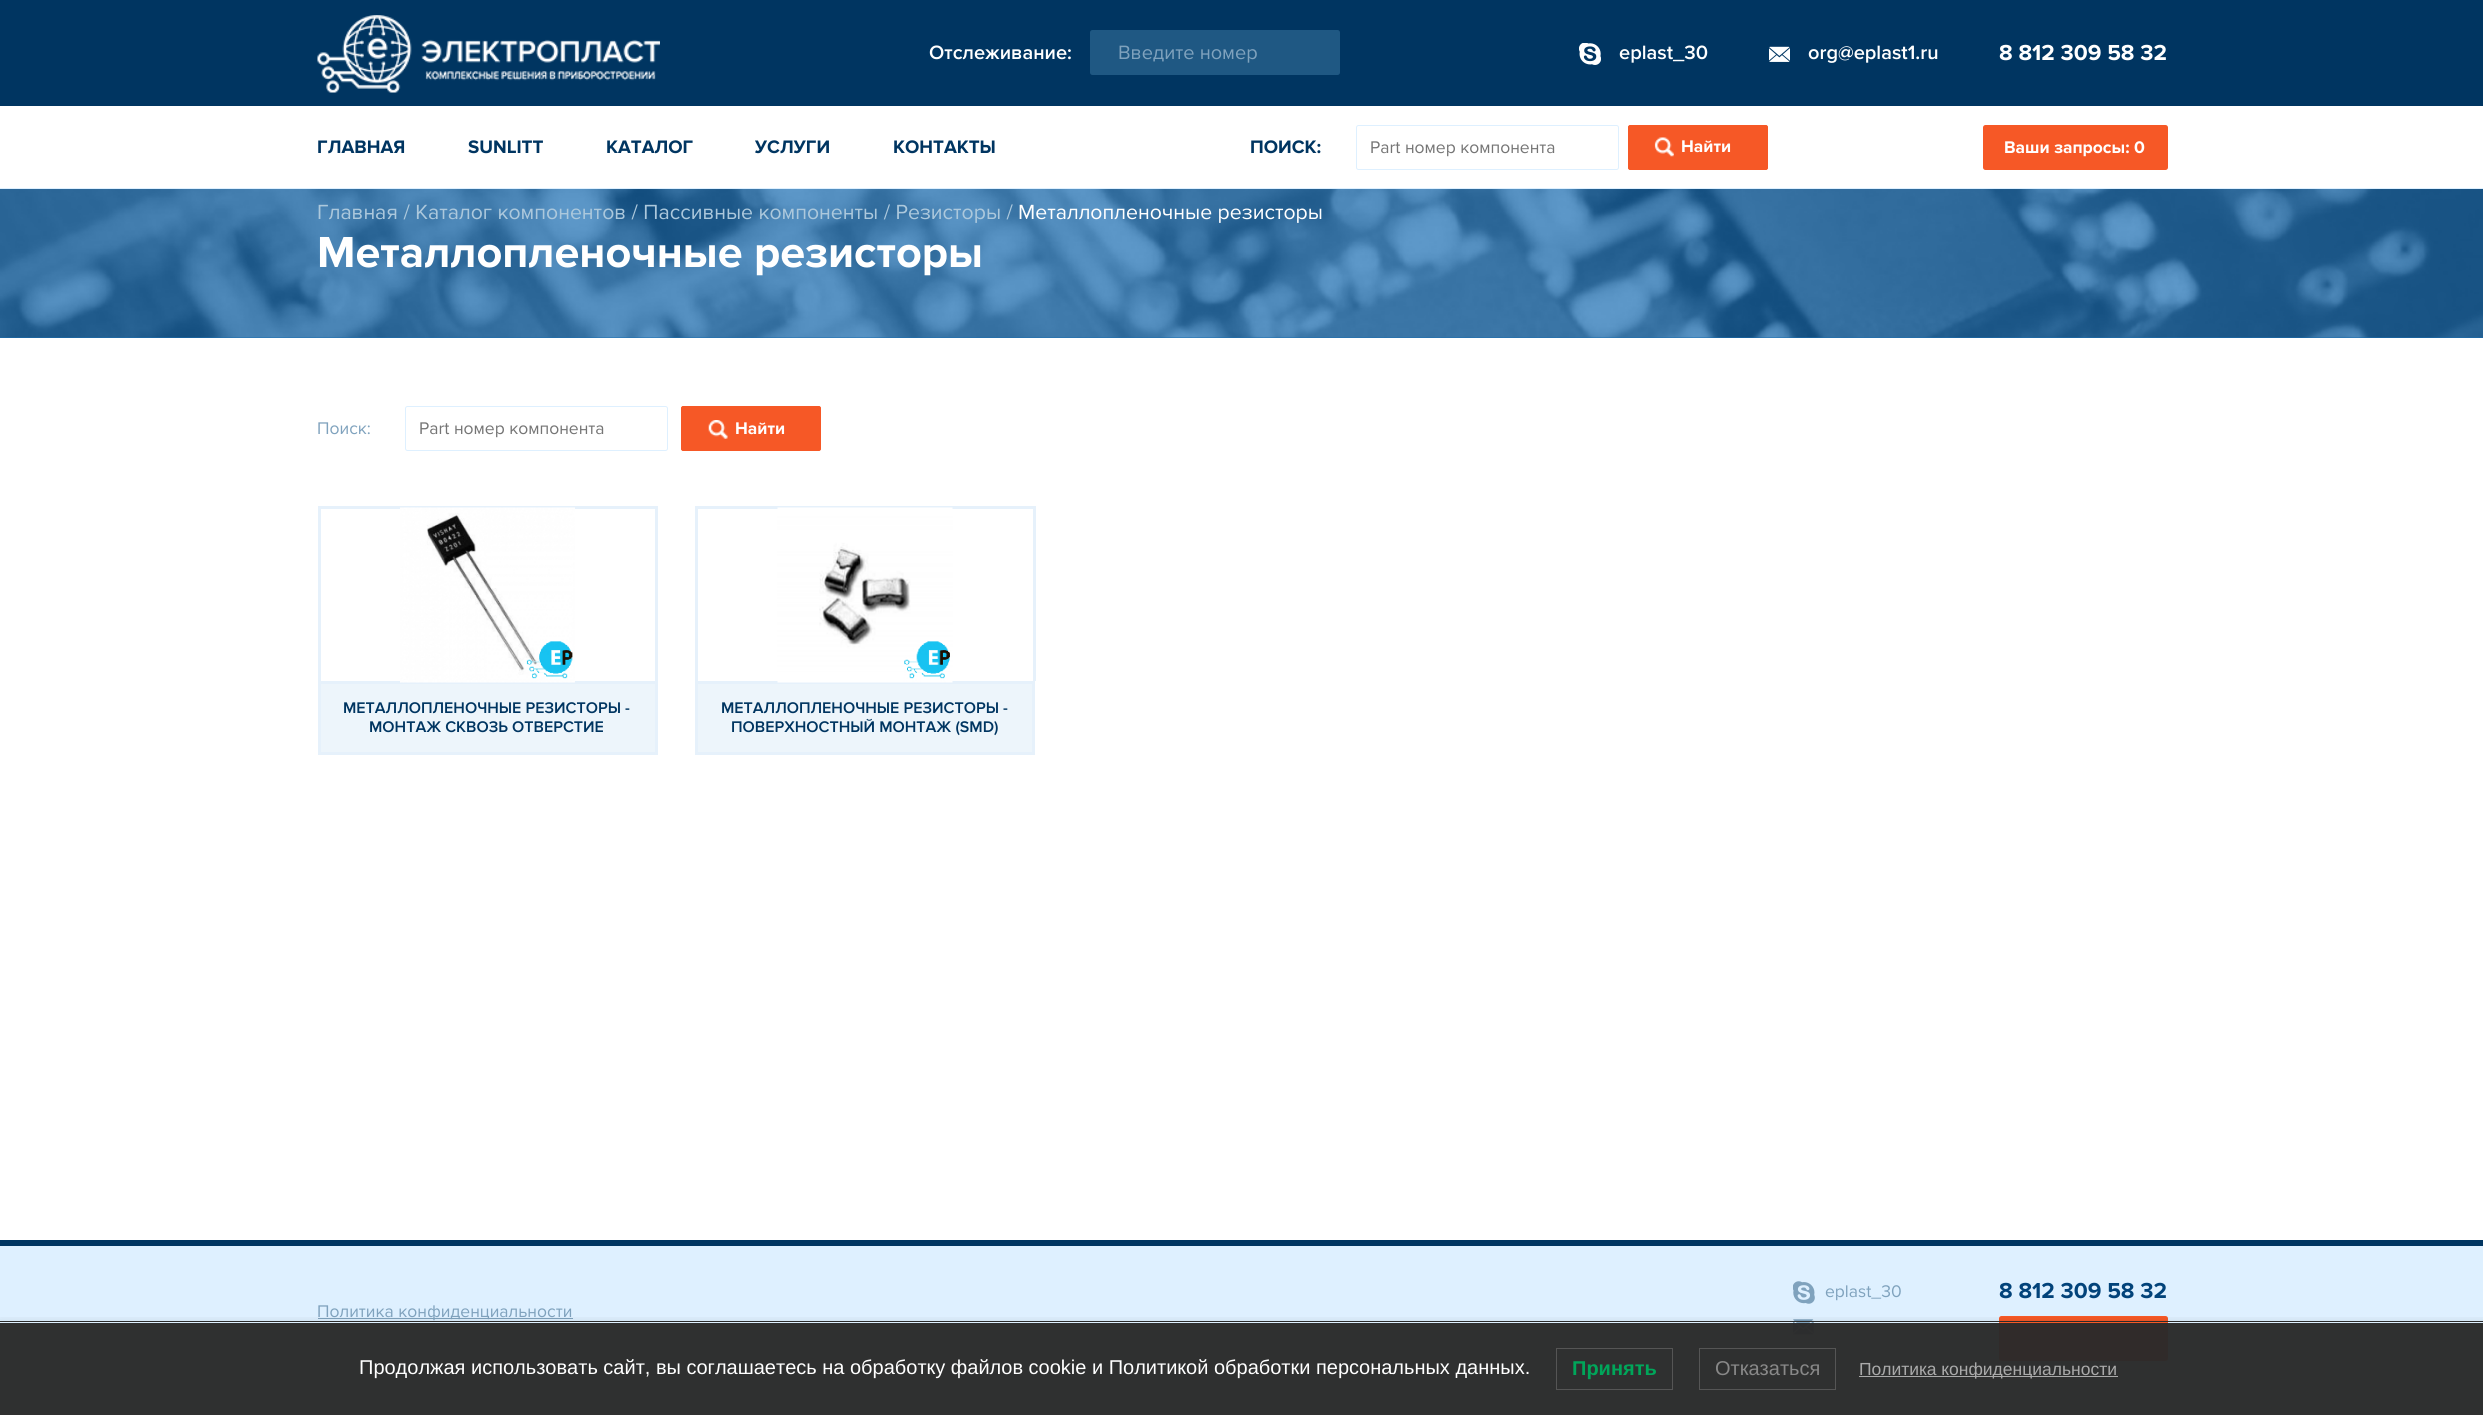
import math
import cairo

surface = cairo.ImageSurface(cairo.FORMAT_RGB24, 2483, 1415)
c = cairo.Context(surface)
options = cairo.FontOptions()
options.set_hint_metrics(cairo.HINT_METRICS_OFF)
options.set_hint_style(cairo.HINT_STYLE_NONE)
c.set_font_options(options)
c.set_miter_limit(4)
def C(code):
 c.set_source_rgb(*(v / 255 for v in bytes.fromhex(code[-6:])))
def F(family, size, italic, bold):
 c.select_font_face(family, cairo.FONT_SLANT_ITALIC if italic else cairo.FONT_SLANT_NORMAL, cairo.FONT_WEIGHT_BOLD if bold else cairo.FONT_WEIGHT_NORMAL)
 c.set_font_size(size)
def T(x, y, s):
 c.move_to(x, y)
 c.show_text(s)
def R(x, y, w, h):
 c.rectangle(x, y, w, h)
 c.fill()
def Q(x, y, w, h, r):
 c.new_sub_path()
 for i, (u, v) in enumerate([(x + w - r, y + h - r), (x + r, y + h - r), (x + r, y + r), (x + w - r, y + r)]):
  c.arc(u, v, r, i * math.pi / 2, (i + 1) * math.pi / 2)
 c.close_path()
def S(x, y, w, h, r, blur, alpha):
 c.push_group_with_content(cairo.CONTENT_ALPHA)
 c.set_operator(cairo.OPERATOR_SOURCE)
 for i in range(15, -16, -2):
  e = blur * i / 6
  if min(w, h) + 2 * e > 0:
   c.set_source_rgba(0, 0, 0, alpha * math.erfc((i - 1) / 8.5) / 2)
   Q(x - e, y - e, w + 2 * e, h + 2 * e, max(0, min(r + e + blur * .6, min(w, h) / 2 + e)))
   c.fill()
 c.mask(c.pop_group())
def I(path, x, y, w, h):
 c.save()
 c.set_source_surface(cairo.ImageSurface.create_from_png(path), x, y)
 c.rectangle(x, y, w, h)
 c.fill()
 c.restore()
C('ffffff')
c.paint()
C('003561')
R(0,0,2483,106)
I('1.png',317,15,343,78)
F('Proxima Nova SemiBold',20,0,0)
C('ffffff')
T(929,59,'Отслеживание:')
C('1f5883')
Q(1090,30,250,45,2.5)
c.fill()
F('Proxima Nova',20,0,0)
C('7fa2bd')
T(1118,59,'Введите номер')
I('2.png',1579,43,22,22)
F('Proxima Nova SemiBold',20,0,0)
C('ffffff')
T(1619,59,'eplast_30')
I('3.png',1769,46,21,16)
T(1808,59,'org@eplast1.ru')
F('Proxima Nova',22.5,0,1)
T(1999,60,'8 812 309 58 32')
C('def0ff')
R(0,188,2483,1)
F('Proxima Nova',18.75,0,1)
C('003561')
T(317,153,'ГЛАВНАЯ')
T(468,153,'SUNLITT')
T(606,153,'КАТАЛОГ')
T(755,153,'УСЛУГИ')
T(893,153,'КОНТАКТЫ')
T(1250,153,'ПОИСК:')
Q(1356.5,125.5,262,44,2)
C('def0ff')
c.set_line_width(1)
c.stroke()
F('Proxima Nova',17.5,0,0)
C('757575')
T(1370,153,'Part номер компонента')
C('f65826')
Q(1628,125,140,45,2.5)
c.fill()
I('4.png',1654,137,20,20)
Q(1629.5,126.5,137,42,1)
c.set_line_width(3)
c.stroke()
F('Proxima Nova',17.5,0,1)
C('ffffff')
T(1681,152,'Найти')
C('f65826')
Q(1984.5,126.5,182,42,1)
c.fill_preserve()
c.stroke()
C('ffffff')
T(2004,153,'Ваши запросы: 0')
C('1a6eb3')
R(0,189,2483,149)
I('5.png',0,189,2483,149)
F('Proxima Nova',21.25,0,0)
C('acc8dc')
T(317,219,'Главная / Каталог компонентов / Пассивные компоненты / Резисторы /')
C('ffffff')
T(1018,219,'Металлопленочные резисторы')
F('Proxima Nova',45,0,1)
T(317,267,'Металлопленочные резисторы')
F('Proxima Nova',17.5,0,0)
C('7fa2bd')
T(317,434,'Поиск:')
Q(405.5,406.5,262,44,2)
C('def0ff')
c.set_line_width(1)
c.stroke()
C('757575')
T(419,434,'Part номер компонента')
C('f65826')
Q(681,406,140,45,2.5)
c.fill()
I('6.png',708,420,20,19)
Q(682.5,407.5,137,42,1)
c.set_line_width(3)
c.stroke()
F('Proxima Nova',17.5,0,1)
C('ffffff')
T(735,434,'Найти')
C('e6f1fb')
R(318,506,340,3)
R(655,506,3,175)
R(318,506,3,175)
C('edf5fb')
c.rectangle(319.5,682.5,337,71)
c.fill_preserve()
C('e6f1fb')
c.stroke()
I('7.png',400,507,175,176)
F('Proxima Nova SemiBold',16,0,0)
C('003561')
T(343,713,'МЕТАЛЛОПЛЕНОЧНЫЕ РЕЗИСТОРЫ -')
T(369,732,'МОНТАЖ СКВОЗЬ ОТВЕРСТИЕ')
C('e6f1fb')
R(695,506,340,3)
R(1033,506,3,175)
R(695,506,3,175)
C('edf5fb')
c.rectangle(696.5,682.5,337,71)
c.fill_preserve()
C('e6f1fb')
c.stroke()
I('8.png',777,507,176,176)
C('003561')
T(721,713,'МЕТАЛЛОПЛЕНОЧНЫЕ РЕЗИСТОРЫ -')
T(731,732,'ПОВЕРХНОСТНЫЙ МОНТАЖ (SMD)')
C('def0ff')
R(0,1246,2483,167)
C('003561')
R(0,1240,2483,6)
I('9.png',1793,1281,22,23)
F('Proxima Nova',17.5,0,0)
C('7fa2bd')
T(1825,1297,'eplast_30')
I('10.png',1793,1319,21,16)
F('Proxima Nova',22.5,0,1)
C('02437a')
T(1999,1298,'8 812 309 58 32')
C('f65826')
Q(2000.5,1317.5,166,42,1)
c.fill_preserve()
c.stroke()
C('7fa2bd')
R(318,1318,255,1)
F('Proxima Nova',17.5,0,0)
T(317,1317,'Политика конфиденциальности')
c.save()
c.rectangle(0,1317,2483,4)
c.clip()
C('000000')
S(0,1321,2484,94,0,5,.1)
c.restore()
c.set_source_rgba(0.169,0.169,0.169,0.97)
R(0,1323,2483,92)
C('2b2b2b')
R(0,1321,2483,1)
F('Liberation Sans',20,0,0)
C('ffffff')
T(359,1374,'Продолжая использовать сайт, вы соглашаетесь на обработку файлов cookie и Политикой обработки персональных данных.')
c.rectangle(1556.5,1348.5,116,41)
C('555555')
c.set_line_width(1)
c.stroke()
F('Liberation Sans',20,0,1)
C('00a65a')
T(1572,1375,'Принять')
c.rectangle(1699.5,1348.5,136,41)
C('555555')
c.stroke()
F('Liberation Sans',20,0,0)
C('888888')
T(1715,1375,'Отказаться')
C('aaaaaa')
R(1859,1376,259,1)
F('Liberation Sans',17.5,0,0)
T(1859,1375,'Политика конфиденциальности')
surface.write_to_png('o.png')
